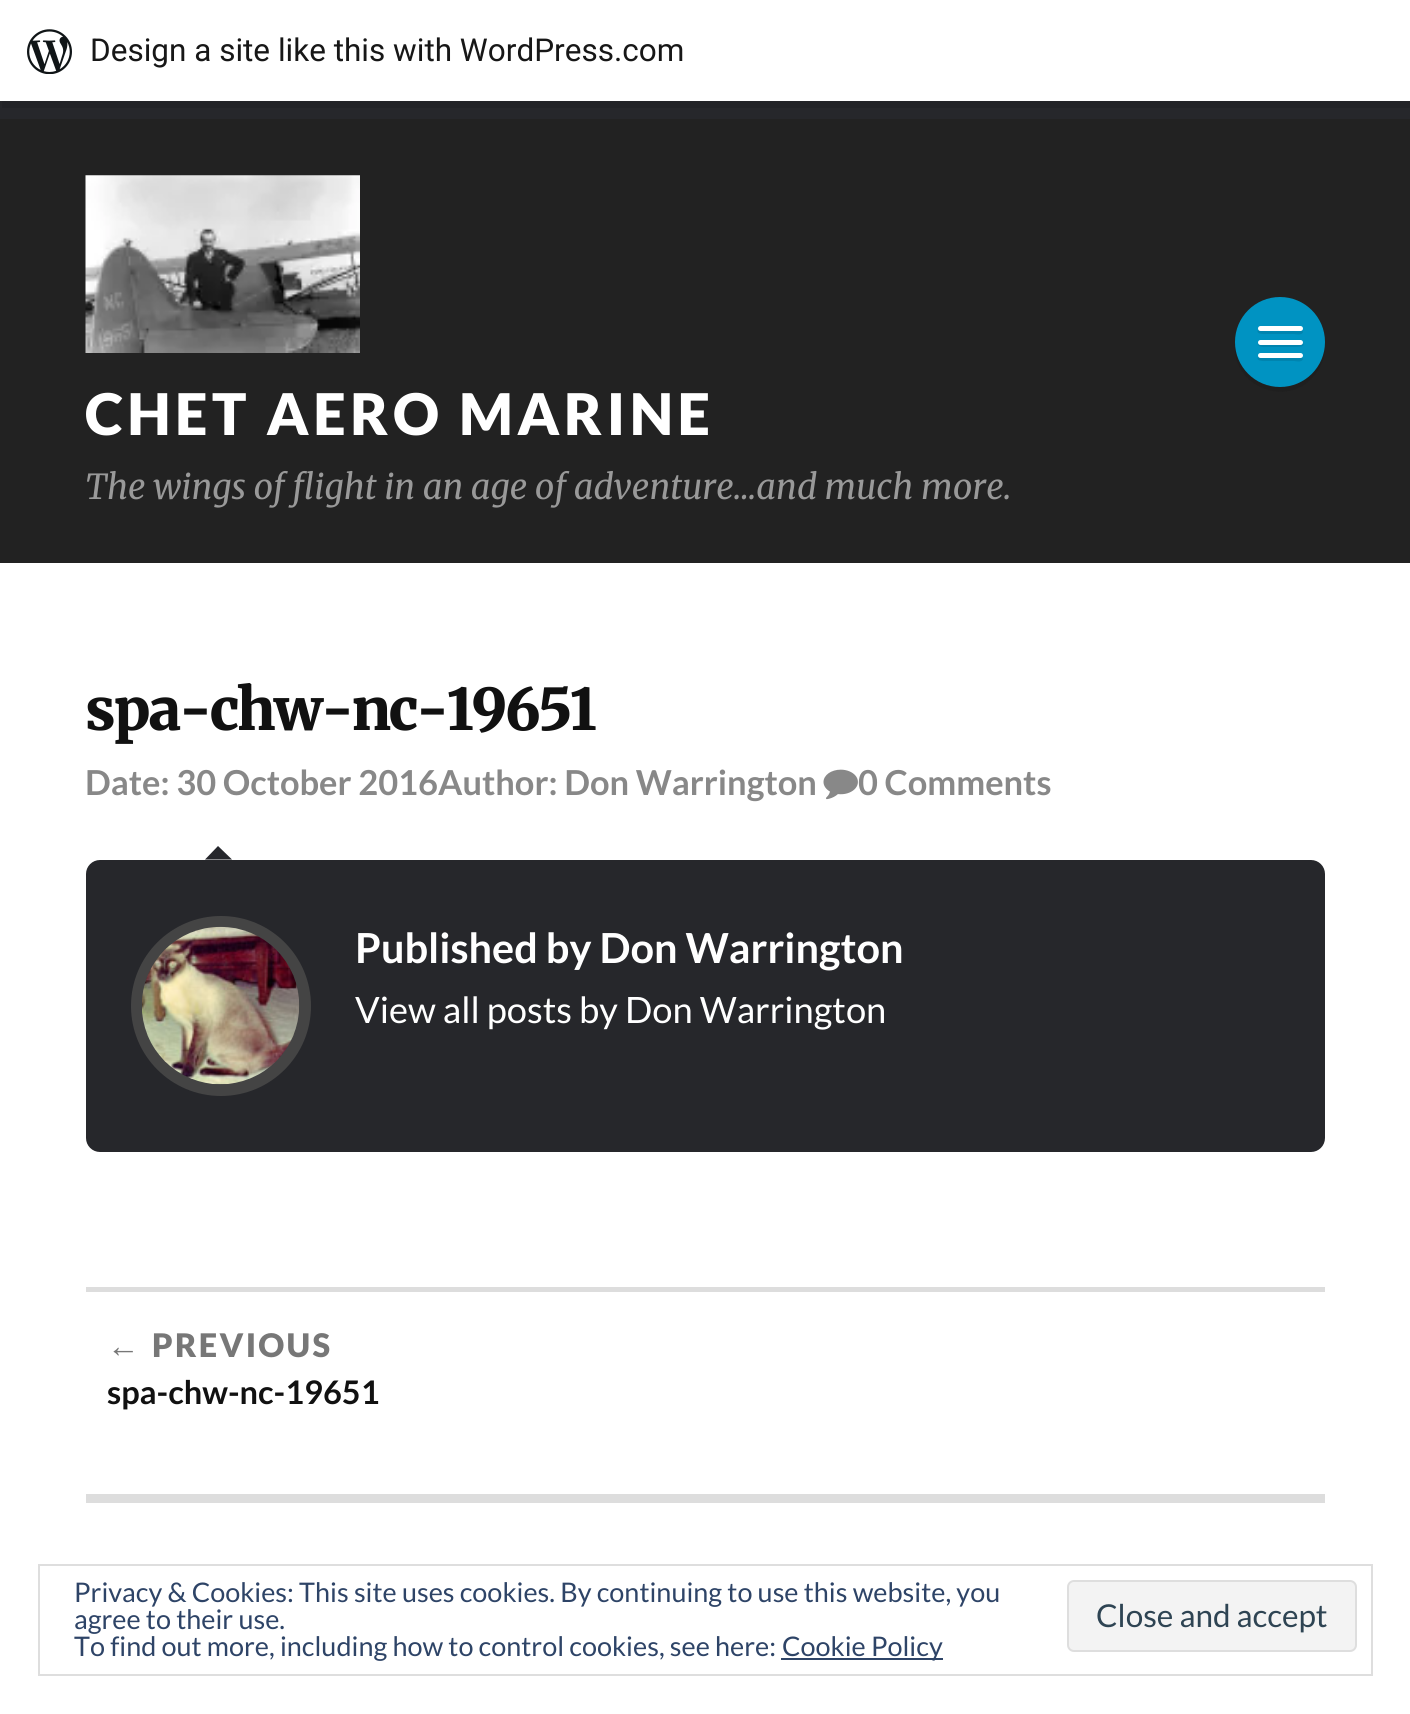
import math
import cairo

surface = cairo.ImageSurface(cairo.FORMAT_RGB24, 1410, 1714)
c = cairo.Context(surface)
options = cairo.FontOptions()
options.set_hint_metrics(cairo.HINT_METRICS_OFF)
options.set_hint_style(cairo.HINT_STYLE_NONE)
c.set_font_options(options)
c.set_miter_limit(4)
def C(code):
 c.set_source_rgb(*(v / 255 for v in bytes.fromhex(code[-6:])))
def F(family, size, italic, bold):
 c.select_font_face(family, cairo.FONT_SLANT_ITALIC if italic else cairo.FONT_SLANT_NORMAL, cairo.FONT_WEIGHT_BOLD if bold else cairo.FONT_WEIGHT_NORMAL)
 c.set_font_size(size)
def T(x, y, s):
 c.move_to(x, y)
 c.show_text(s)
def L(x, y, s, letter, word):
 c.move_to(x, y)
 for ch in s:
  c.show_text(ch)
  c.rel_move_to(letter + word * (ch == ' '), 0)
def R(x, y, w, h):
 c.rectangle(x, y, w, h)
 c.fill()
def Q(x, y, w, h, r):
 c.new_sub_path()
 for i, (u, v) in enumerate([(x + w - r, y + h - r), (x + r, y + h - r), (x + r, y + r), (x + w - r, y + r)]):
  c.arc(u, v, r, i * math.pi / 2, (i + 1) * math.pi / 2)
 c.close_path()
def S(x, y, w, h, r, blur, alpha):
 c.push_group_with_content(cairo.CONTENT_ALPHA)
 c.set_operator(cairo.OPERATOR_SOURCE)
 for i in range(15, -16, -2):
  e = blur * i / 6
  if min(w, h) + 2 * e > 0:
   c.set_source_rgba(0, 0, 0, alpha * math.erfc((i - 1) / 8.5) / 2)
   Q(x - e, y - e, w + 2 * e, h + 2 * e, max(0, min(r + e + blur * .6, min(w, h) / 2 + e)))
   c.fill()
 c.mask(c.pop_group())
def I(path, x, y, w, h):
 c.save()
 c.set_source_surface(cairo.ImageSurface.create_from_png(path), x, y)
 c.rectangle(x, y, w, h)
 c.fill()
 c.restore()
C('ffffff')
c.paint()
C('26272b')
R(0,101,1410,18)
C('000000')
S(0,2,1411,102,0,2,.05)
C('222327')
c.new_path()
c.move_to(2,101)
c.line_to(2,108)
c.line_to(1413,108)
c.line_to(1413,7)
c.line_to(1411,7)
c.line_to(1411,101)
c.close_path()
c.fill()
C('ffffff')
R(0,0,1410,101)
I('1.png',27,29,45,45)
F('Roboto',31.5,0,0)
C('171717')
T(90,61,'Design a site like this with WordPress.com')
C('222222')
R(0,119,1410,444)
I('2.png',85,175,275,178)
C('1f1f1f')
c.new_path()
c.move_to(1235,342)
c.curve_to(1230,388,1291,411,1317,372)
c.curve_to(1322,365,1325,356,1325,347)
c.curve_to(1323,369,1303,387,1280,387)
c.curve_to(1255,387,1235,367,1235,342)
c.close_path()
c.fill()
C('0093c2')
c.arc(1280,342,45,0,2 * math.pi)
c.fill()
C('0084af')
c.new_path()
c.move_to(1258,330)
c.curve_to(1255,335,1267,334,1267,334)
c.line_to(1294,334)
c.curve_to(1295,334,1302,336,1303,332)
c.line_to(1302,330)
c.curve_to(1301,332,1294,331,1294,331)
c.curve_to(1289,331,1260,332,1258,330)
c.close_path()
c.fill()
C('ffffff')
Q(1258,326,45,5,2.5)
c.fill()
C('0084af')
c.new_path()
c.move_to(1258,343)
c.curve_to(1256,348,1267,347,1267,347)
c.line_to(1294,347)
c.curve_to(1298,347,1306,347,1303,343)
c.curve_to(1301,346,1294,344,1294,344)
c.curve_to(1289,344,1260,345,1258,343)
c.close_path()
c.fill()
C('ffffff')
Q(1258,340,45,5,2.5)
c.fill()
C('0084af')
c.new_path()
c.move_to(1258,357)
c.curve_to(1255,362,1267,361,1267,361)
c.line_to(1294,361)
c.curve_to(1295,361,1302,363,1303,359)
c.line_to(1302,357)
c.curve_to(1301,359,1294,358,1294,358)
c.curve_to(1289,358,1260,359,1258,357)
c.close_path()
c.fill()
C('ffffff')
Q(1258,353,45,5,2.5)
c.fill()
F('Lato Black',57.4,0,0)
L(85,435,'CHET AERO MARINE',4.5,0)
F('Merriweather Light',34.4,1,0)
C('999999')
T(85,499,'The wings of flight in an age of adventure…and much more.')
F('Merriweather Black',57.4,0,0)
C('111111')
L(85,730,'spa-chw-nc-19651',-2.25,0)
F('Lato',34.4,0,1)
C('888888')
T(85,795,'Date: 30 October 2016Author: Don Warrington')
I('3.png',823,769,35,31)
T(858,795,'0 Comments')
C('26272b')
Q(86,860,1239,292,14)
c.fill()
C('25262b')
c.new_path()
c.move_to(232,859.5)
c.line_to(205,859.5)
c.line_to(218,846)
c.close_path()
c.fill()
C('444444')
c.arc(221,1006,90,0,2 * math.pi)
c.fill()
I('4.png',142,926,158,159)
F('Lato',41.4,0,1)
C('ffffff')
T(355,963,'Published by Don Warrington')
F('Lato',36.3,0,0)
T(355,1023,'View all posts by Don Warrington')
C('dddddd')
R(86,1287,1239,5)
F('Liberation Serif',32.5,0,1)
C('777777')
L(107,1357,'←',2.25,0)
F('Lato Black',32.5,0,0)
L(152,1357,'PREVIOUS',2.25,0)
F('Lato',32.5,0,1)
C('111111')
T(107,1404,'spa-chw-nc-19651')
C('dddddd')
R(86,1494,1239,9)
c.rectangle(39,1565,1333,110)
C('dedede')
c.stroke()
F('Lato',27,0,0)
C('2e4467')
T(74,1602,'Privacy & Cookies: This site uses cookies. By continuing to use this website, you')
T(74,1629,'agree to their use.')
C('f3f3f3')
Q(1068,1581,288,70,6)
c.fill_preserve()
C('dedede')
c.stroke()
F('Lato',31.5,0,0)
C('2e4453')
T(1096,1627,'Close and accept')
F('Lato',27,0,0)
C('2e4467')
T(74,1656,'To find out more, including how to control cookies, see here:')
R(781,1658,162,2)
T(782,1656,'Cookie Policy')
surface.write_to_png('o.png')
